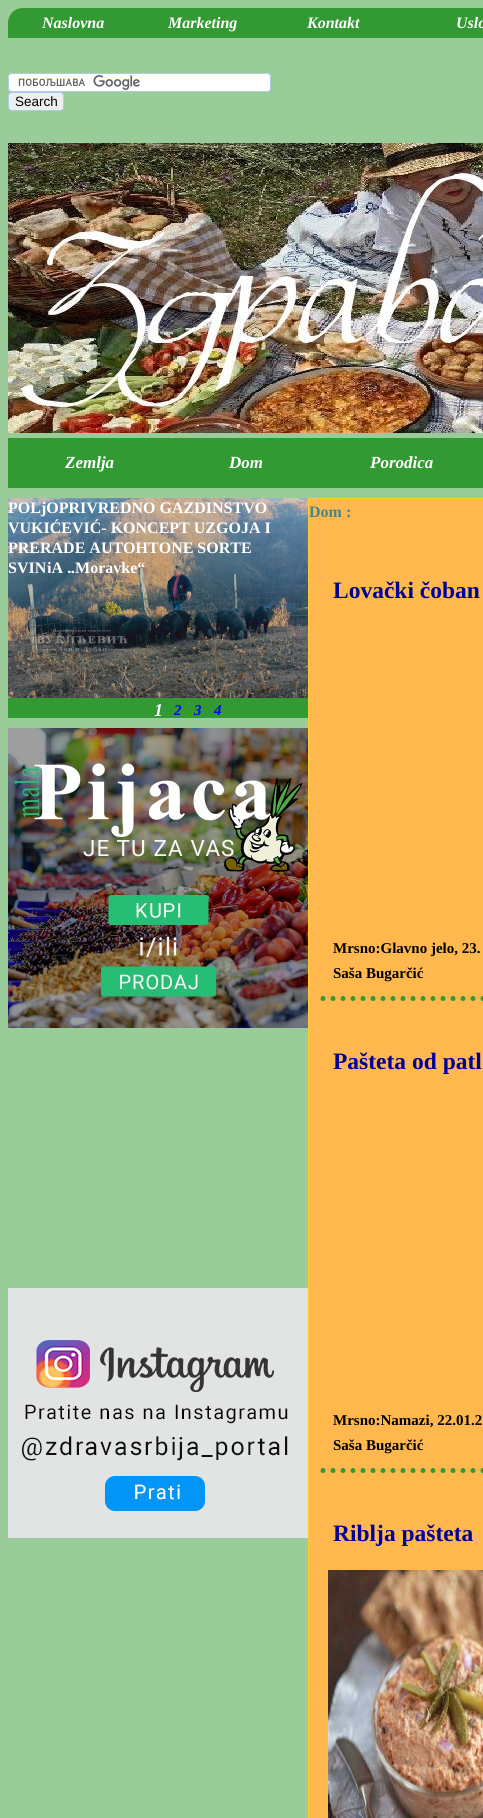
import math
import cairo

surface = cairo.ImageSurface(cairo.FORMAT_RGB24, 483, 1818)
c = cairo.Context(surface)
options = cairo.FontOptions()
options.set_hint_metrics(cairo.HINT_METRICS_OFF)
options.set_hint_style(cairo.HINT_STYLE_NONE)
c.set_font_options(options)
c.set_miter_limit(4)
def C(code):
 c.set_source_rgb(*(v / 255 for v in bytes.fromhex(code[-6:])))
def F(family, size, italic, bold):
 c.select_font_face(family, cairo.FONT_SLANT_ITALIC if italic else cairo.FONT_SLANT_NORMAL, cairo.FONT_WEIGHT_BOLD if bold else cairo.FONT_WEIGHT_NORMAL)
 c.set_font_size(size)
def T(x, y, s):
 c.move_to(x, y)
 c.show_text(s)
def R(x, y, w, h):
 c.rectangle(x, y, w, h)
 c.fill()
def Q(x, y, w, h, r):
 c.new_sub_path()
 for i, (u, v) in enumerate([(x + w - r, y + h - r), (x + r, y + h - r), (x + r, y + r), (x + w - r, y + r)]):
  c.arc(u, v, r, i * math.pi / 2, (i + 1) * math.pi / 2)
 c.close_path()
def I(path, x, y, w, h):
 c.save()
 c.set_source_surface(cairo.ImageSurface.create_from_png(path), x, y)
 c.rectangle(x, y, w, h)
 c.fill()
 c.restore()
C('99cc99')
c.paint()
C('339933')
c.new_path()
c.move_to(23,8)
c.line_to(483,8)
c.curve_to(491.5,8,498,14.5,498,23)
c.line_to(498,38)
c.line_to(8,38)
c.line_to(8,23)
c.curve_to(8,14.5,14.5,8,23,8)
c.close_path()
c.fill()
F('Liberation Serif',16,1,1)
C('ffffff')
T(42,28,'Naslovna')
T(168,28,'Marketing')
T(307,28,'Kontakt')
T(456,28,'Uslo')
Q(8,73,263,19,4)
c.fill()
I('1.png',18,75,122,15)
Q(8.5,73.5,262,18,3.5)
C('aaccee')
c.set_line_width(1)
c.stroke()
C('efefef')
Q(8.5,92.5,55,18,3.5)
c.fill_preserve()
C('aaccee')
c.stroke()
F('Liberation Sans',13.5,0,0)
C('000000')
T(15,106,'Search')
I('2.png',8,143,475,290)
C('339933')
R(8,438,475,50)
F('Liberation Serif',17,1,1)
C('ffffff')
T(65,468,'Zemlja')
T(229,468,'Dom')
T(370,468,'Porodica')
I('3.png',8,498,300,200)
F('Liberation Serif',16,0,1)
T(8,513,'POLjOPRIVREDNO GAZDINSTVO')
T(8,533,'VUKIĆEVIĆ- KONCEPT UZGOJA I')
T(8,553,'PRERADE AUTOHTONE SORTE')
c.save()
c.rectangle(8,498,300,75)
c.clip()
T(8,573,'SVINjA „Moravke“')
c.restore()
C('339933')
R(8,698,300,20)
F('Liberation Serif',18,1,1)
C('ffffff')
T(154,716,'1')
F('Liberation Serif',15,1,1)
C('0000ff')
T(174,715,'2')
T(194,715,'3')
T(214,715,'4')
C('ffb84d')
c.rectangle(308.5,498.5,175,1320)
c.fill_preserve()
C('ffcc33')
c.stroke()
F('Liberation Serif',16,0,1)
C('418791')
T(309,517,'Dom :')
c.new_path()
c.move_to(323,998.5)
c.line_to(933,998.5)
C('339933')
c.set_line_width(5)
c.set_line_cap(cairo.LINE_CAP_ROUND)
c.set_dash([0,10])
c.stroke()
F('Liberation Serif',23.5,0,1)
C('000099')
T(333,598,'Lovački čoban')
F('Liberation Serif',15,0,1)
C('000000')
T(333,953,'Mrsno:Glavno jelo, 23.')
T(333,978,'Saša Bugarčić')
c.new_path()
c.move_to(323,1470.5)
c.line_to(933,1470.5)
C('339933')
c.stroke()
F('Liberation Serif',23.5,0,1)
C('000099')
T(333,1069,'Pašteta od patl')
F('Liberation Serif',15,0,1)
C('000000')
T(333,1425,'Mrsno:Namazi, 22.01.2')
T(333,1450,'Saša Bugarčić')
F('Liberation Serif',23.5,0,1)
C('000099')
T(333,1541,'Riblja pašteta')
I('4.png',328,1570,155,248)
I('5.png',8,728,300,300)
I('6.png',8,1288,300,250)
surface.write_to_png('o.png')
